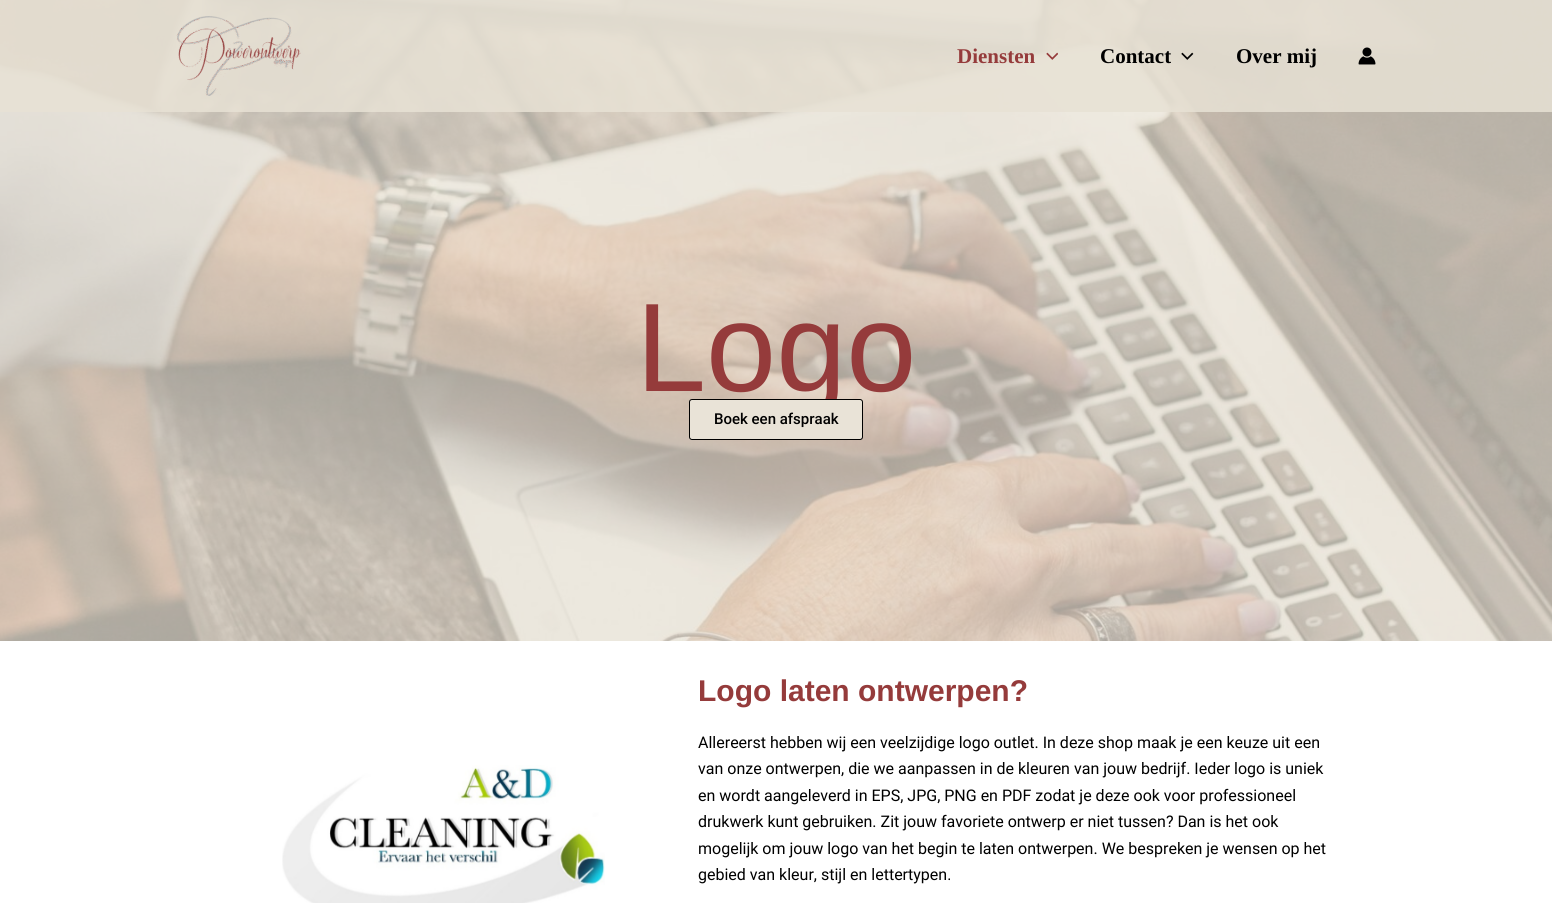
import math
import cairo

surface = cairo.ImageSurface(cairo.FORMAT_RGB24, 1552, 903)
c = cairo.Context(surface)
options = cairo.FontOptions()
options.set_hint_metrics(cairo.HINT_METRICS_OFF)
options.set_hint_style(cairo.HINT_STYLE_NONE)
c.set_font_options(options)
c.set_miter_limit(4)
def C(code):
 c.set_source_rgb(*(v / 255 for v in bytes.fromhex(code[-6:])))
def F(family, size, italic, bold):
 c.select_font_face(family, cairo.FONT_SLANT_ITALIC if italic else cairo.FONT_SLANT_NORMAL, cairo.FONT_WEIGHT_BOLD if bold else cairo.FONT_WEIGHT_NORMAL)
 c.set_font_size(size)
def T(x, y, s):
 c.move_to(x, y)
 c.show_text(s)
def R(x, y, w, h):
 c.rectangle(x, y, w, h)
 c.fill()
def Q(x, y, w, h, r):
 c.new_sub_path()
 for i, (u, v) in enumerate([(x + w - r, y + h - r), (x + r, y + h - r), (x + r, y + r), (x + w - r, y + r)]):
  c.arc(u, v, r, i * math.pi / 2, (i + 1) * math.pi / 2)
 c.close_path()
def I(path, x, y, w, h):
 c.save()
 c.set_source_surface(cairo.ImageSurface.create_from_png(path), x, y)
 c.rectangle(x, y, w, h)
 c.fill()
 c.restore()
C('ffffff')
c.paint()
I('5.png',0,0,1552,641)
c.set_source_rgba(0.91,0.886,0.835,0.84)
R(0,0,1552,112)
I('1.png',176,16,125,80)
F('Liberation Serif',21,0,1)
C('953b3b')
T(957,63,'Diensten')
I('2.png',1046,52,12,8)
C('000000')
T(1100,63,'Contact')
I('3.png',1181,52,13,8)
T(1236,63,'Over mij')
I('4.png',1358,47,18,18)
F('Liberation Sans',126,0,0)
C('953b3b')
T(636,391,'Logo')
C('e9e3d7')
Q(689.5,399.5,173,40,2.5)
c.fill_preserve()
C('000000')
c.set_line_width(1)
c.stroke()
F('Roboto Medium',15,0,0)
T(714,424,'Boek een afspraak')
I('6.png',282,765,323,138)
F('Liberation Sans',30,0,1)
C('953b3b')
T(698,701,'Logo laten ontwerpen?')
F('Roboto',16,0,0)
C('000000')
T(698,748,'Allereerst hebben wij een veelzijdige logo outlet. In deze shop maak je een keuze uit een')
T(698,774,'van onze ontwerpen, die we aanpassen in de kleuren van jouw bedrijf. Ieder logo is uniek')
T(698,801,'en wordt aangeleverd in EPS, JPG, PNG en PDF zodat je deze ook voor professioneel')
T(698,827,'drukwerk kunt gebruiken. Zit jouw favoriete ontwerp er niet tussen? Dan is het ook')
T(698,854,'mogelijk om jouw logo van het begin te laten ontwerpen. We bespreken je wensen op het')
T(698,880,'gebied van kleur, stijl en lettertypen.')
surface.write_to_png('o.png')
